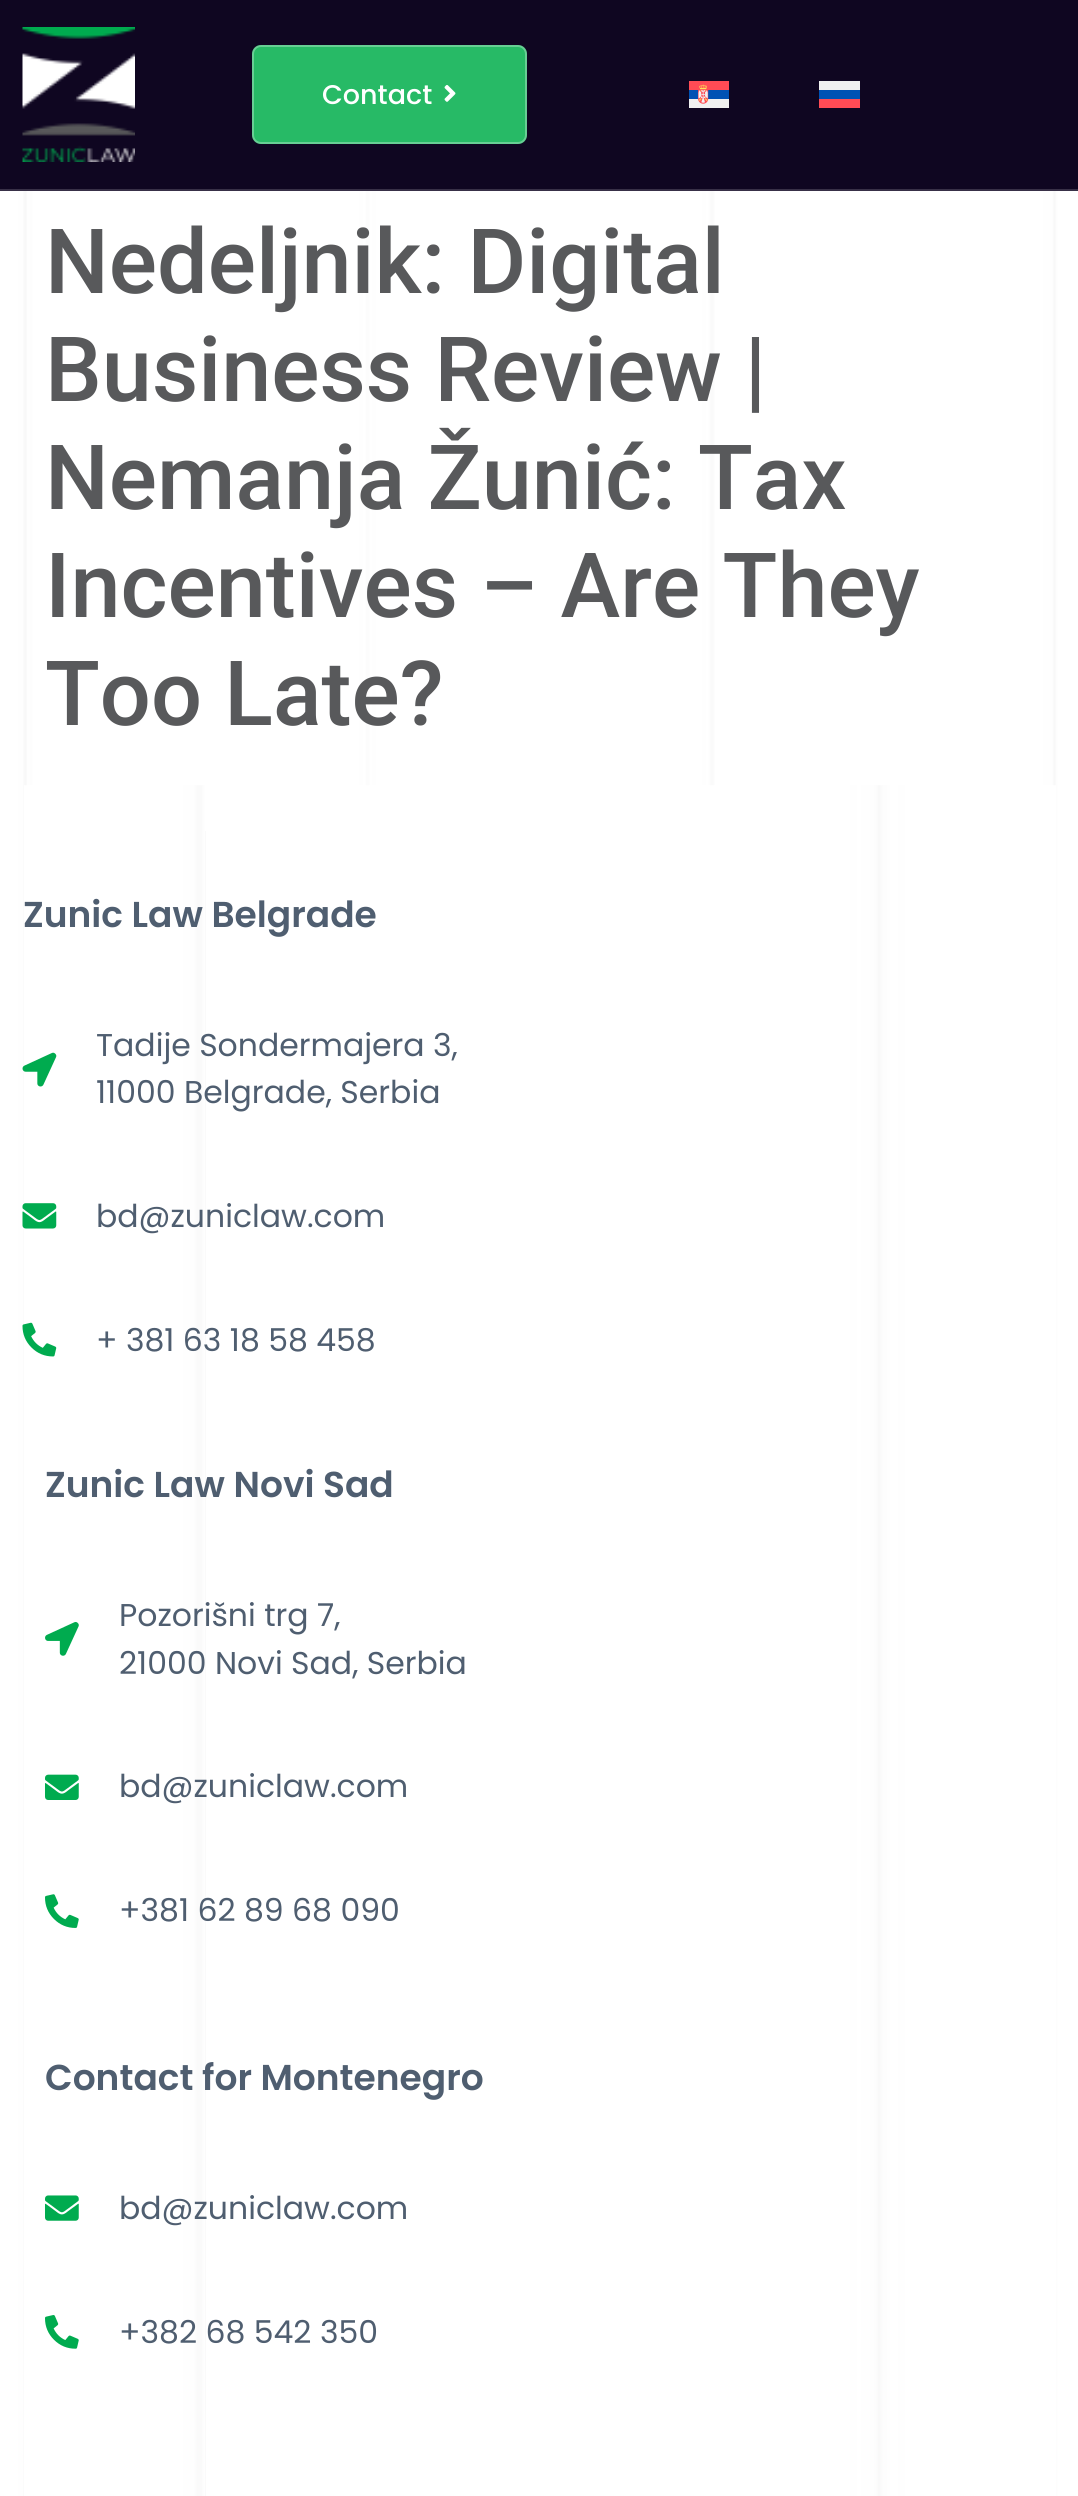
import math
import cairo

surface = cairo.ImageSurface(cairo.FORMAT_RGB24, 1078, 2496)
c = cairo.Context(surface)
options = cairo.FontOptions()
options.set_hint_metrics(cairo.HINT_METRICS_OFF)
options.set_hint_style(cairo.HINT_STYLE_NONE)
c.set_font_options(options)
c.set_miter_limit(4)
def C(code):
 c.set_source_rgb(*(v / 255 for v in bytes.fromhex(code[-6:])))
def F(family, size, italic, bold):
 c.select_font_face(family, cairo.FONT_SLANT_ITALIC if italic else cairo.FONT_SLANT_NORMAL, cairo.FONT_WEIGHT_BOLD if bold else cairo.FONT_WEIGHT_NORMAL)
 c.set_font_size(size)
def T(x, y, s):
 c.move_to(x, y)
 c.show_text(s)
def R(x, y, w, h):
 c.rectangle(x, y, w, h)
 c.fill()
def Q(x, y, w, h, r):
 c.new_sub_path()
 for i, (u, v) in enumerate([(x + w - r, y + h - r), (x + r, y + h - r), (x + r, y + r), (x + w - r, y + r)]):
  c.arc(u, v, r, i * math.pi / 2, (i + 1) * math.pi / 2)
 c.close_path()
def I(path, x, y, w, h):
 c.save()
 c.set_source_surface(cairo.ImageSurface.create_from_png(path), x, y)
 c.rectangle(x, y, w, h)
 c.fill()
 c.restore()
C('ffffff')
c.paint()
I('1.png',0,191,1078,2305)
C('0f0621')
R(0,0,1078,189)
C('383047')
R(0,189,1078,2)
I('2.png',22,27,113,135)
C('27ba66')
Q(252,45,275,99,9)
c.fill()
Q(253,46,273,97,8)
c.set_source_rgba(1,1,1,0.3)
c.stroke()
F('Poppins Medium',27,0,0)
C('ffffff')
T(322,104,'Contact')
I('3.png',444,85,12,17)
I('4.png',689,81,40,27)
C('0052b4')
R(819,90,41,9)
C('ff4b55')
R(819,99,41,9)
C('f0f0f0')
R(819,81,41,9)
F('Roboto Medium',90,0,0)
C('58595b')
T(45,293,'Nedeljnik: Digital')
T(45,401,'Business Review |')
T(45,509,'Nemanja Žunić: Tax')
T(45,617,'Incentives – Are They')
T(45,725,'Too Late?')
I('5.png',24,785,1032,1711)
C('fafafa')
R(205,831,1,1665)
F('Poppins SemiBold',36,0,0)
C('4f5e70')
T(23,927,'Zunic Law Belgrade')
I('6.png',22,1052,35,35)
F('Poppins',31.5,0,0)
T(96,1056,'Tadije Sondermajera 3,')
T(96,1103,'11000 Belgrade, Serbia')
I('7.png',22,1203,35,26)
T(96,1227,'bd@zuniclaw.com')
I('8.png',22,1322,35,35)
T(96,1351,'+ 381 63 18 58 458')
F('Poppins SemiBold',36,0,0)
T(45,1497,'Zunic Law Novi Sad')
I('9.png',45,1622,34,34)
F('Poppins',31.5,0,0)
T(119,1626,'Pozorišni trg 7,')
T(119,1674,'21000 Novi Sad, Serbia')
I('10.png',45,1774,34,26)
T(119,1797,'bd@zuniclaw.com')
I('11.png',45,1894,34,34)
T(119,1921,'+381 62 89 68 090')
F('Poppins SemiBold',36,0,0)
T(45,2090,'Contact for Montenegro')
I('12.png',45,2195,34,26)
F('Poppins',31.5,0,0)
T(119,2219,'bd@zuniclaw.com')
I('13.png',45,2315,34,34)
T(119,2343,'+382 68 542 350')
surface.write_to_png('o.png')
